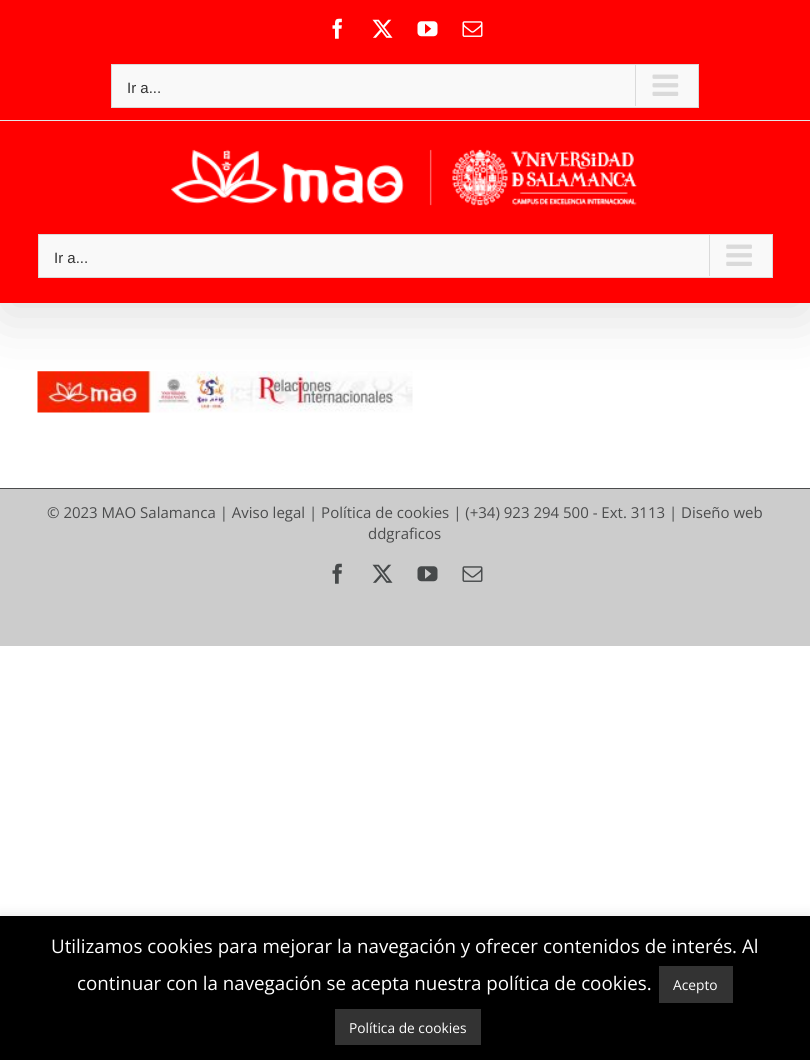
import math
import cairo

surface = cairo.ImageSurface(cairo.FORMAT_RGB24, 810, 1060)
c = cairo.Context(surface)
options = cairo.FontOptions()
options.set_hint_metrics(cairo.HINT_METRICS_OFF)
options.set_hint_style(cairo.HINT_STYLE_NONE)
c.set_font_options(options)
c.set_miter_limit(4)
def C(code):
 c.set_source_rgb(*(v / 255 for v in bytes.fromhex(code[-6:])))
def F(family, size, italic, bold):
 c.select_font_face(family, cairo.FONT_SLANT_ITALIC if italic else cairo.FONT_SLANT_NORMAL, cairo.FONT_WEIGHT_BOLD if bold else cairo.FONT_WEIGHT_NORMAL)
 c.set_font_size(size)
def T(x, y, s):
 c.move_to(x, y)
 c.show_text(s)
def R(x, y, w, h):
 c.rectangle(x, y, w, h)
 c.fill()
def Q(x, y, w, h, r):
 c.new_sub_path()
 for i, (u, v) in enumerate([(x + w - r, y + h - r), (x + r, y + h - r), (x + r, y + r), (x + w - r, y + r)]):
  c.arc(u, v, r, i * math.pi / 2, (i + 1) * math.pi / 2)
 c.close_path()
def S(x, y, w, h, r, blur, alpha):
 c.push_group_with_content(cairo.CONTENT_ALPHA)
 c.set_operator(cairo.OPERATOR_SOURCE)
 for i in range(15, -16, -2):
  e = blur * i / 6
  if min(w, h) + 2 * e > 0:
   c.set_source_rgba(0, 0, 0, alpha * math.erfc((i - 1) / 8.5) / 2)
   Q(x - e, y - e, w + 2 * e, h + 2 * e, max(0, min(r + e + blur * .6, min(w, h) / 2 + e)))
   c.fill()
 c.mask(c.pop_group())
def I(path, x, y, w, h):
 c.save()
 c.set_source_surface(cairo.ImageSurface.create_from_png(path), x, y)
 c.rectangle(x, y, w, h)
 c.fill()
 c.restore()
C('ffffff')
c.paint()
I('8.png',37,371,376,42)
C('000000')
S(3,15,805,298,0,31,.14)
C('ff0000')
R(0,0,810,120)
C('e5e5e5')
R(0,120,810,1)
I('1.png',332,18,10,21)
I('2.png',372,19,21,19)
I('3.png',417,21,21,16)
I('4.png',462,21,21,16)
C('f9f9f9')
c.rectangle(111.5,64.5,587,43)
c.fill_preserve()
C('dadada')
c.set_line_width(1)
c.stroke()
F('Liberation Sans',15,0,0)
C('333333')
T(127,93,'Ir a...')
C('dadada')
R(635,65,1,41)
I('5.png',652,74,27,22)
C('ff0000')
R(0,121,810,182)
I('6.png',171,149,466,57)
C('f9f9f9')
c.rectangle(38.5,234.5,734,43)
c.fill_preserve()
C('dadada')
c.stroke()
C('333333')
T(54,263,'Ir a...')
C('dadada')
R(709,235,1,41)
I('7.png',726,244,26,22)
C('cccccc')
R(0,489,810,157)
C('4b4c4d')
R(0,488,810,1)
F('Open Sans',15,0,0)
T(47,518,'© 2023 MAO Salamanca | Aviso legal | Política de cookies | (+34) 923 294 500 - Ext. 3113 | Diseño web')
T(368,539,'ddgraficos')
I('9.png',332,563,10,21)
I('10.png',372,564,21,19)
I('11.png',417,566,21,16)
I('12.png',462,566,21,16)
C('acabab')
S(0,915,810,144,0,6,.3)
C('000000')
R(0,916,810,144)
F('Open Sans',18.75,0,0)
C('ffffff')
T(51,953,'Utilizamos cookies para mejorar la navegación y ofrecer contenidos de interés. Al')
T(77,990,'continuar con la navegación se acepta nuestra política de cookies.')
C('333333')
R(659,966,74,37)
F('Open Sans',13.75,0,0)
C('ffffff')
T(673,990,'Acepto')
C('333333')
R(335,1009,146,36)
C('ffffff')
T(349,1033,'Política de cookies')
surface.write_to_png('o.png')
